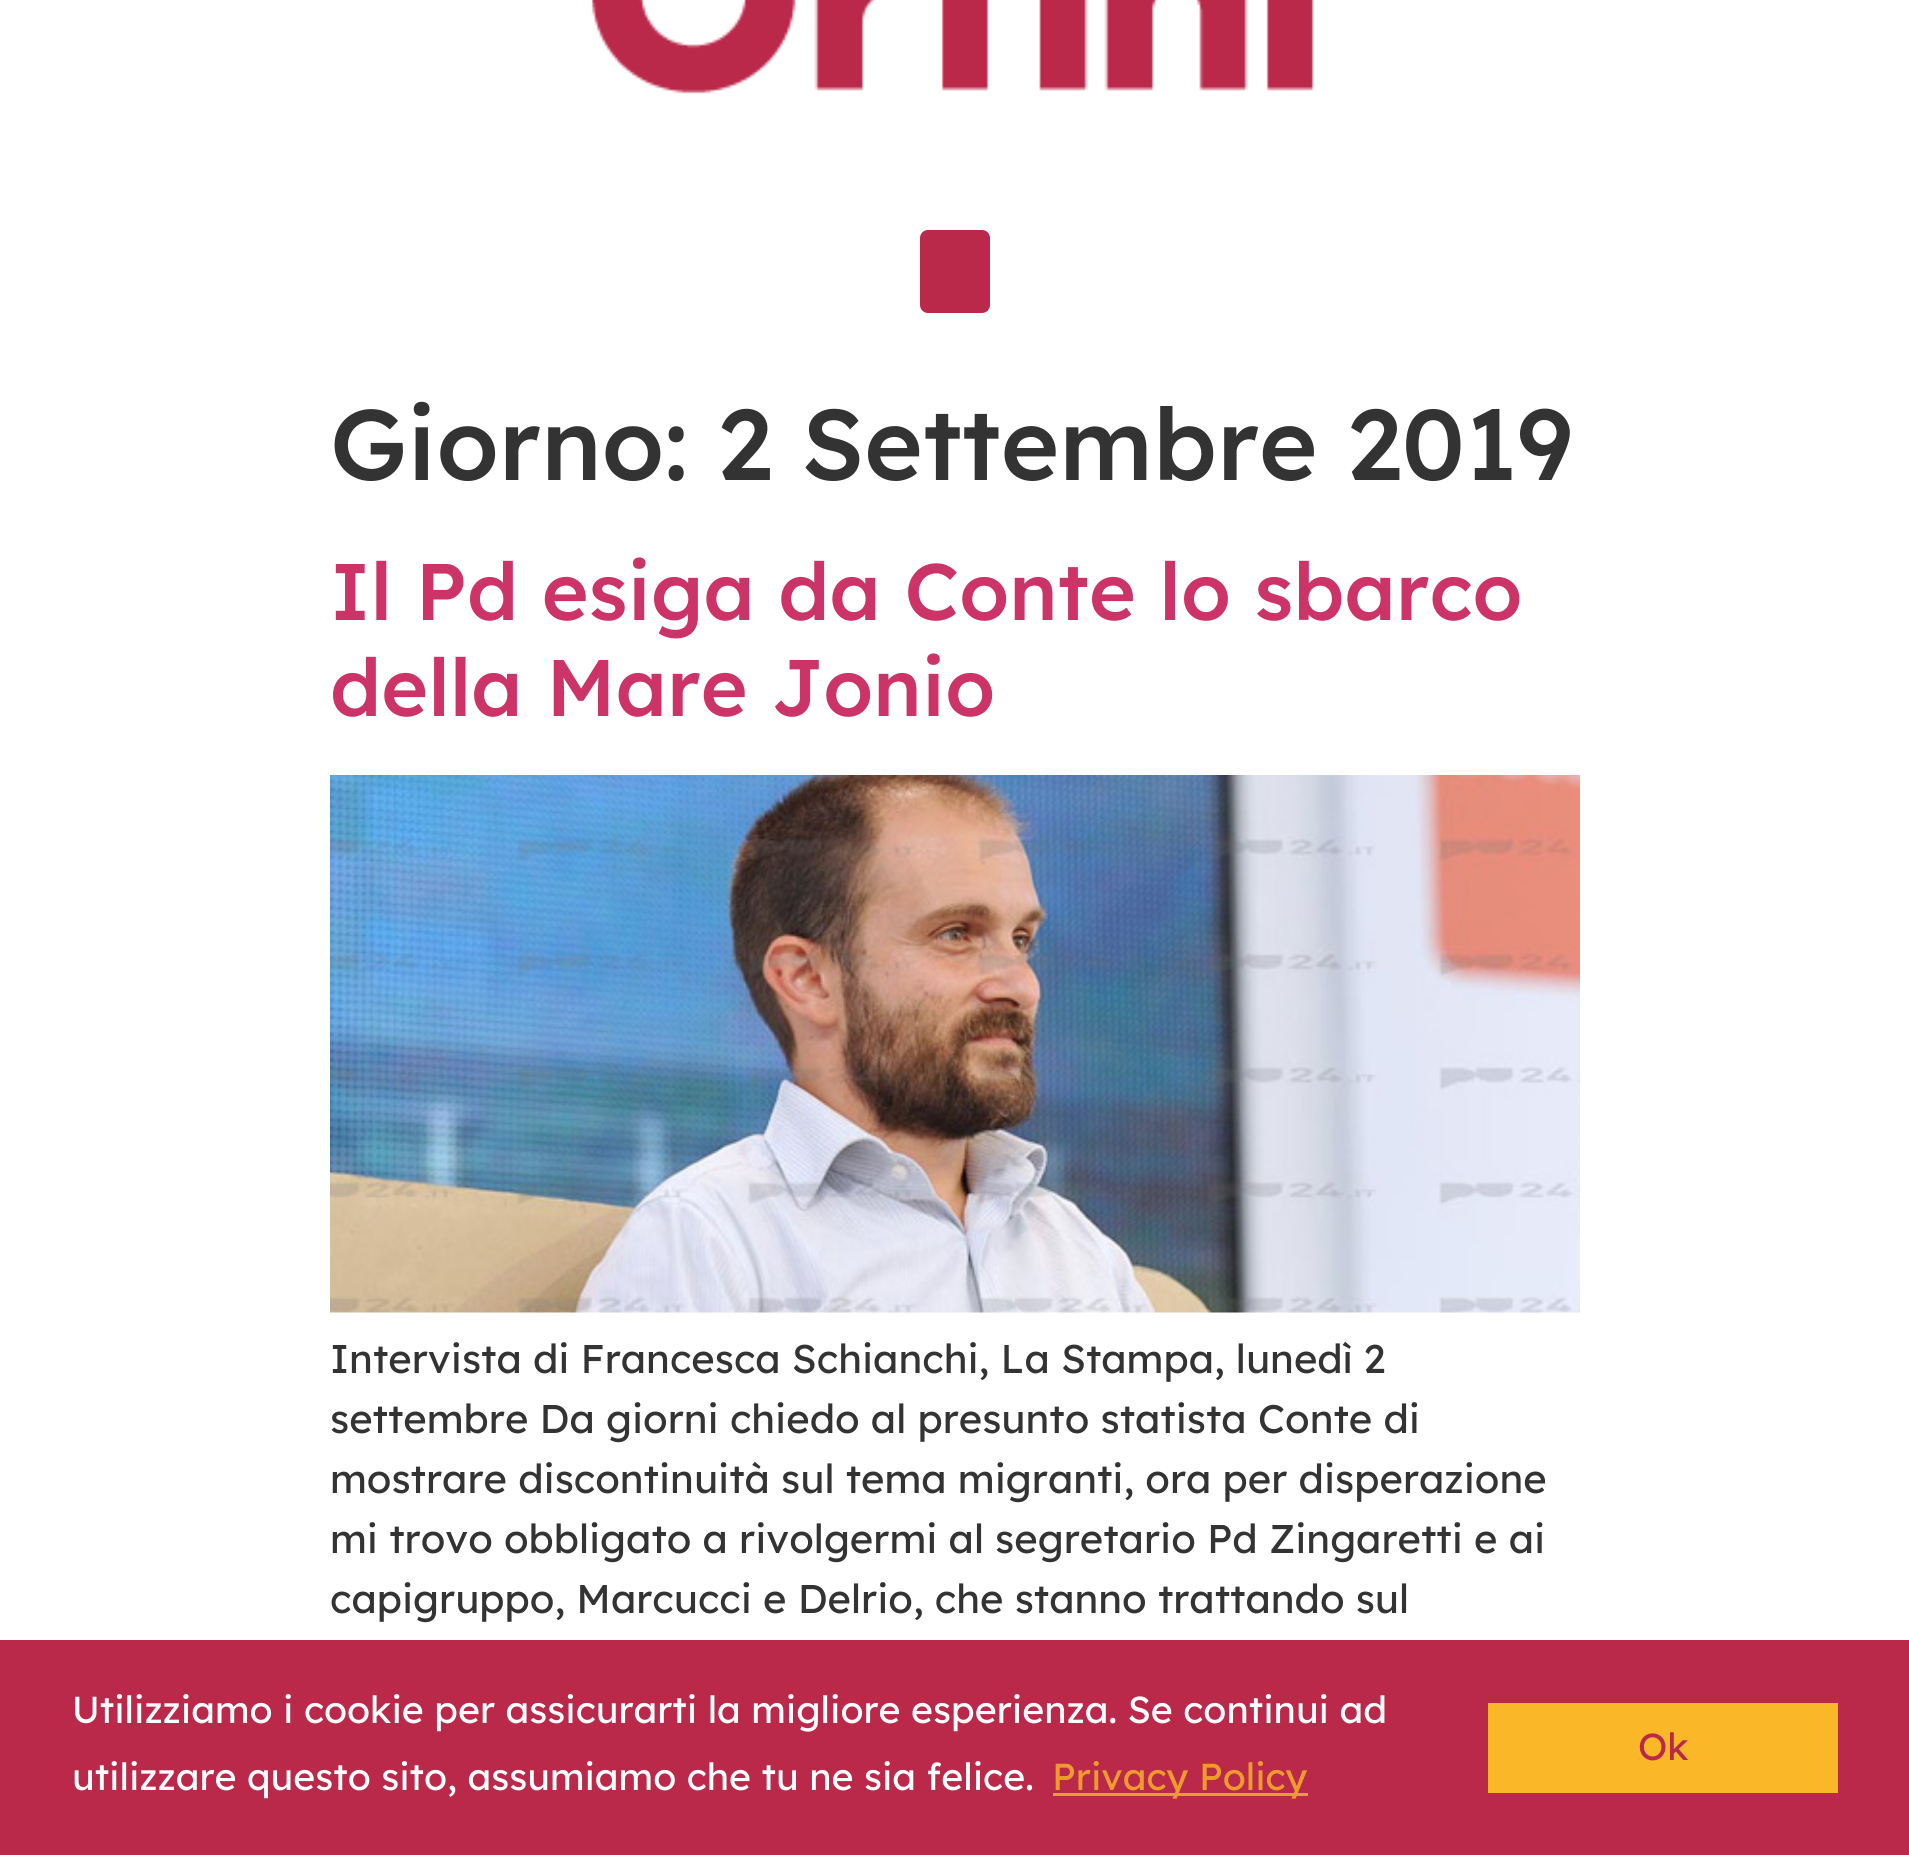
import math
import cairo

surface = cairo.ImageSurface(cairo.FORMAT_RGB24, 1909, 1855)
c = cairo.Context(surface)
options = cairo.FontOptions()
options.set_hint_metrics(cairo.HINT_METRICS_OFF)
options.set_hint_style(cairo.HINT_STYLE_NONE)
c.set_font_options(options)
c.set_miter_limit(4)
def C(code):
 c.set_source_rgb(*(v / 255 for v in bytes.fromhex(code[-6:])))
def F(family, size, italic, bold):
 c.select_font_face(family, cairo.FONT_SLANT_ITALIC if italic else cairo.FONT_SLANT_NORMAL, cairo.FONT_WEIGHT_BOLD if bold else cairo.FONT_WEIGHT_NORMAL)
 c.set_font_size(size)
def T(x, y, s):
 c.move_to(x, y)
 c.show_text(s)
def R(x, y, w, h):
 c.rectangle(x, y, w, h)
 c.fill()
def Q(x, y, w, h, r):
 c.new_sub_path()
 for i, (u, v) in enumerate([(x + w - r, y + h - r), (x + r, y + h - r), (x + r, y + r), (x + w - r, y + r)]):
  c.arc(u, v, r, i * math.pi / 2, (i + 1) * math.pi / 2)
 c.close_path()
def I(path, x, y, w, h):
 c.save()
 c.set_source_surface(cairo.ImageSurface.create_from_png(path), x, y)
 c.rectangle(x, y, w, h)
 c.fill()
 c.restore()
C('ffffff')
c.paint()
I('1.png',591,0,723,94)
C('bb294a')
Q(920,230,70,83,8)
c.fill()
F('Lexend Medium',100,0,0)
C('333333')
T(330,480,'Giorno: 2 Settembre 2019')
F('Lexend Medium',80,0,0)
C('cc3366')
T(330,620,'Il Pd esiga da Conte lo sbarco')
T(330,716,'della Mare Jonio')
I('2.png',330,775,1250,538)
F('Lexend',40,0,0)
C('333333')
T(330,1373,'Intervista di Francesca Schianchi, La Stampa, lunedì 2')
T(330,1433,'settembre Da giorni chiedo al presunto statista Conte di')
T(330,1493,'mostrare discontinuità sul tema migranti, ora per disperazione')
T(330,1553,'mi trovo obbligato a rivolgermi al segretario Pd Zingaretti e ai')
T(330,1613,'capigruppo, Marcucci e Delrio, che stanno trattando sul')
C('bb294a')
R(0,1640,1909,215)
F('Lexend',37.5,0,0)
C('ffffff')
T(72,1723,'Utilizziamo i cookie per assicurarti la migliore esperienza. Se continui ad')
T(72,1790,'utilizzare questo sito, assumiamo che tu ne sia felice.')
C('ed9b2f')
R(1053,1793,255,3)
T(1052,1790,'Privacy Policy')
C('fab728')
R(1488,1703,350,90)
C('bb294a')
T(1638,1760,'Ok')
surface.write_to_png('o.png')
